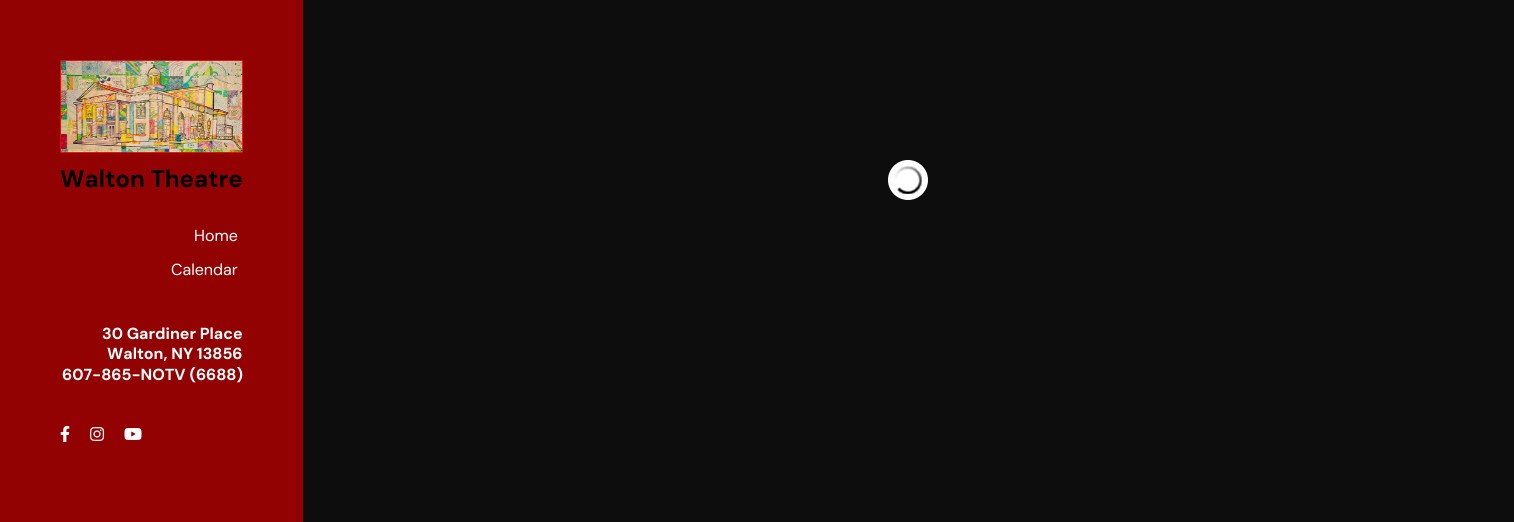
import math
import cairo

surface = cairo.ImageSurface(cairo.FORMAT_RGB24, 1514, 522)
c = cairo.Context(surface)
options = cairo.FontOptions()
options.set_hint_metrics(cairo.HINT_METRICS_OFF)
options.set_hint_style(cairo.HINT_STYLE_NONE)
c.set_font_options(options)
c.set_miter_limit(4)
def C(code):
 c.set_source_rgb(*(v / 255 for v in bytes.fromhex(code[-6:])))
def F(family, size, italic, bold):
 c.select_font_face(family, cairo.FONT_SLANT_ITALIC if italic else cairo.FONT_SLANT_NORMAL, cairo.FONT_WEIGHT_BOLD if bold else cairo.FONT_WEIGHT_NORMAL)
 c.set_font_size(size)
def T(x, y, s):
 c.move_to(x, y)
 c.show_text(s)
def R(x, y, w, h):
 c.rectangle(x, y, w, h)
 c.fill()
def I(path, x, y, w, h):
 c.save()
 c.set_source_surface(cairo.ImageSurface.create_from_png(path), x, y)
 c.rectangle(x, y, w, h)
 c.fill()
 c.restore()
C('0d0d0d')
c.paint()
C('930202')
R(0,0,303,522)
I('1.png',60,60,183,93)
F('DM Sans',24,0,1)
C('000000')
T(60,187,'Walton Theatre')
F('DM Sans',16,0,0)
C('ffffff')
T(194,241,'Home')
T(171,275,'Calendar')
F('DM Sans',16,0,1)
T(102,339,'30 Gardiner Place')
T(107,359,'Walton, NY 13856')
T(62,380,'607-865-NOTV (6688)')
I('2.png',60,426,10,16)
I('3.png',90,427,15,14)
I('4.png',124,428,18,12)
c.arc(908,180,20,0,2 * math.pi)
c.fill()
I('5.png',894,166,28,28)
surface.write_to_png('o.png')
